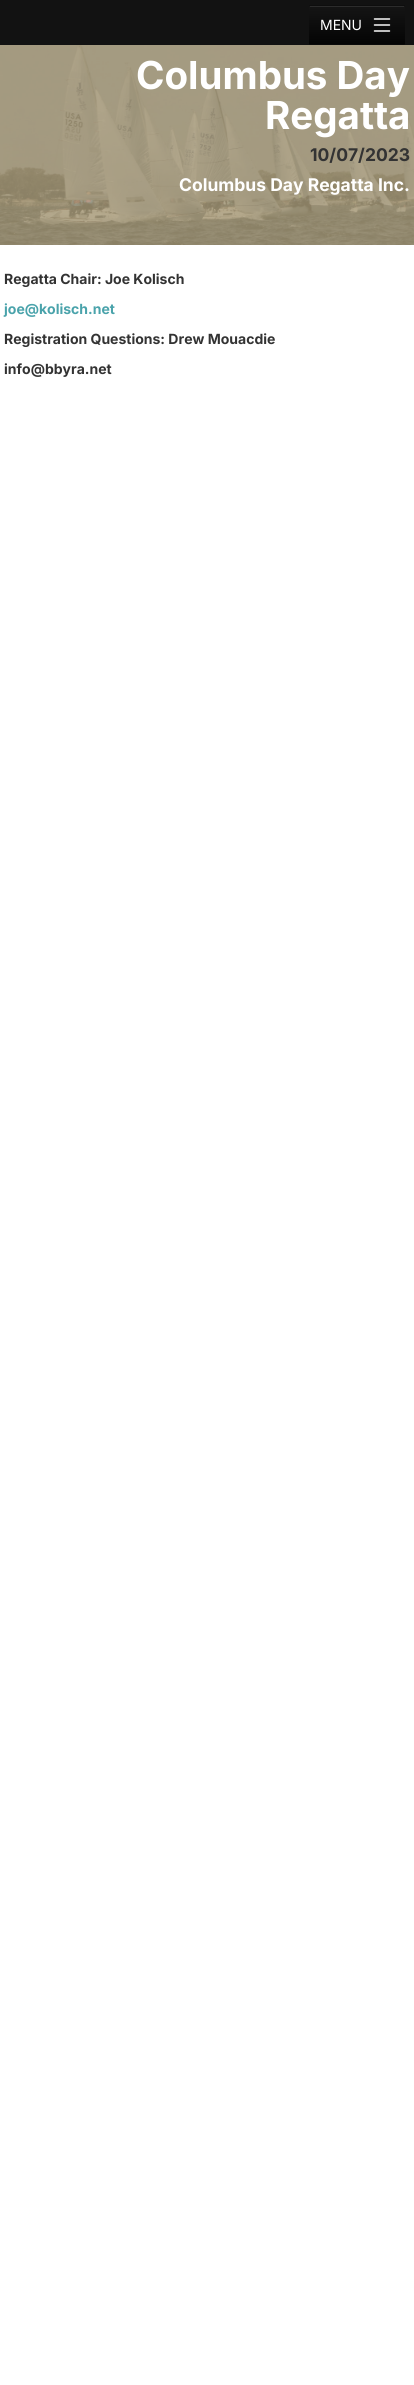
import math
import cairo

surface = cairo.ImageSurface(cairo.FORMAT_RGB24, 414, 2385)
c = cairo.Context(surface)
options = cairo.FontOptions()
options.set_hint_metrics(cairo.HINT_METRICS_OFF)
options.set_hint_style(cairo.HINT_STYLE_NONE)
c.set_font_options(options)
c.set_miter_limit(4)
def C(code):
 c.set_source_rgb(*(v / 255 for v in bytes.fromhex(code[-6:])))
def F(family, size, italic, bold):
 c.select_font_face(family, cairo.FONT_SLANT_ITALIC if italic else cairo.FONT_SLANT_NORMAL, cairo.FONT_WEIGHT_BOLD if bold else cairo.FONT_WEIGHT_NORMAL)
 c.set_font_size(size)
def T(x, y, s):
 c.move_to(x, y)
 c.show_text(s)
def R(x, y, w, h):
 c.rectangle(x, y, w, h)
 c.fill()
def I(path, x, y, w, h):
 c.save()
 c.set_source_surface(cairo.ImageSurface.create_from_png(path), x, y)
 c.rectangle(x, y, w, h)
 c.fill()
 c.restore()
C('ffffff')
c.paint()
C('b9ae92')
R(0,45,414,200)
C('121212')
R(0,0,414,45)
C('0e0e0e')
R(309,5,96,40)
gradient = cairo.LinearGradient(357,6,357,44)
gradient.add_color_stop_rgba(0,0.082,0.082,0.082,1)
gradient.add_color_stop_rgba(1,0.016,0.016,0.016,1)
c.set_source(gradient)
R(309,6,96,38)
C('2c2c2c')
R(310,6,94,1)
C('0a0a0a')
c.new_path()
c.move_to(405,45)
c.line_to(309,45)
c.line_to(310,44)
c.line_to(404,44)
c.close_path()
c.fill()
F('Inter',14,0,0)
C('ffffff')
T(320,30,'MENU')
I('1.png',373,18,18,14)
I('2.png',0,45,414,200)
F('Inter',38.5,0,1)
T(136,89,'Columbus Day')
T(265,129,'Regatta')
F('Inter',17.5,0,1)
C('333333')
T(310,161,'10/07/2023')
C('ffffff')
T(179,191,'Columbus Day Regatta Inc.')
F('Inter',14,0,1)
C('333333')
T(4,284,'Regatta Chair: Joe Kolisch')
C('4aa3ab')
T(4,314,'joe@kolisch.net')
C('333333')
T(4,344,'Registration Questions: Drew Mouacdie')
T(4,374,'info@bbyra.net')
surface.write_to_png('o.png')
